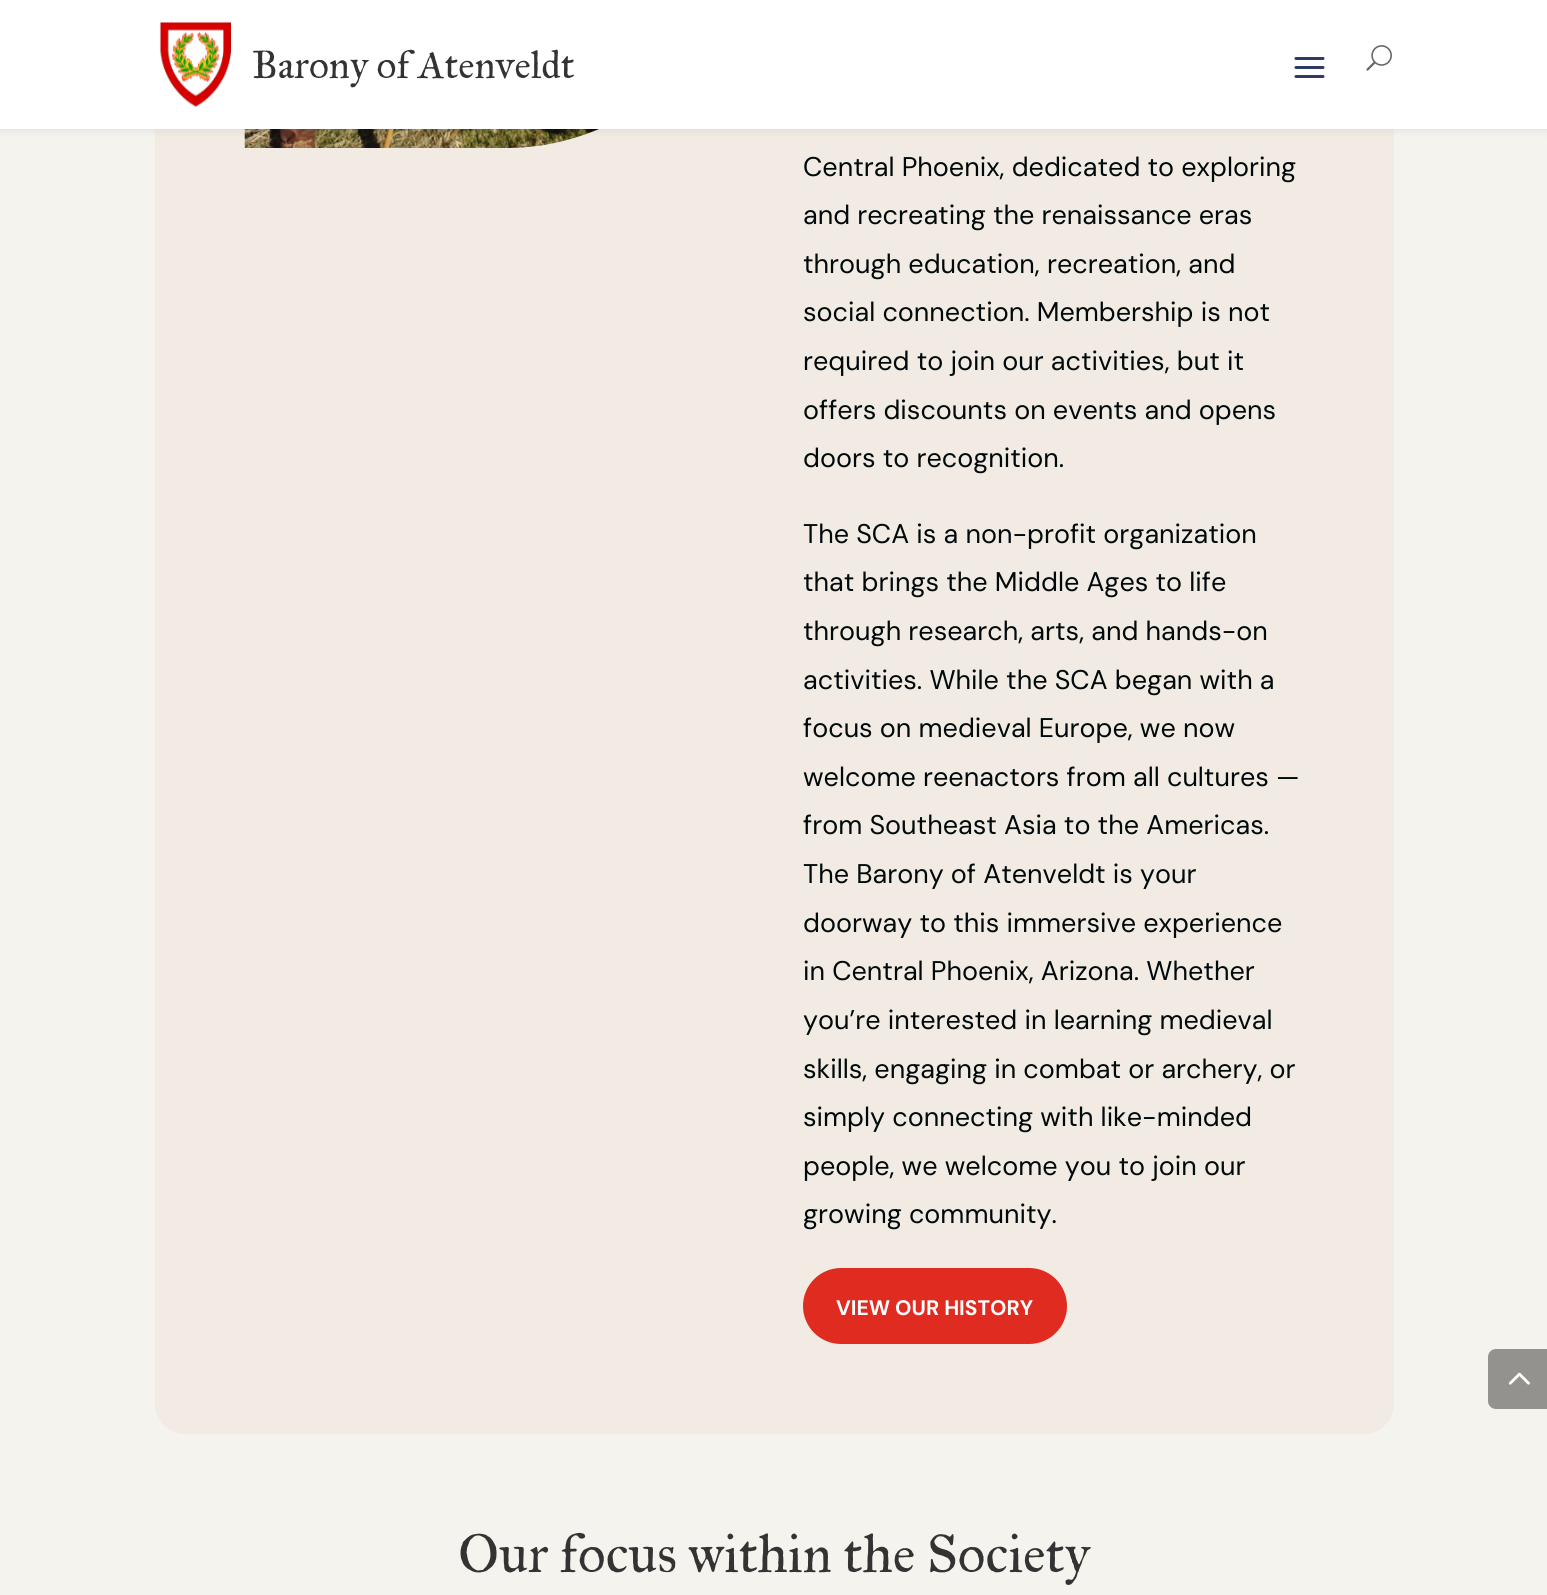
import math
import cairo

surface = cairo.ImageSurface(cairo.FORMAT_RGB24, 1547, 1595)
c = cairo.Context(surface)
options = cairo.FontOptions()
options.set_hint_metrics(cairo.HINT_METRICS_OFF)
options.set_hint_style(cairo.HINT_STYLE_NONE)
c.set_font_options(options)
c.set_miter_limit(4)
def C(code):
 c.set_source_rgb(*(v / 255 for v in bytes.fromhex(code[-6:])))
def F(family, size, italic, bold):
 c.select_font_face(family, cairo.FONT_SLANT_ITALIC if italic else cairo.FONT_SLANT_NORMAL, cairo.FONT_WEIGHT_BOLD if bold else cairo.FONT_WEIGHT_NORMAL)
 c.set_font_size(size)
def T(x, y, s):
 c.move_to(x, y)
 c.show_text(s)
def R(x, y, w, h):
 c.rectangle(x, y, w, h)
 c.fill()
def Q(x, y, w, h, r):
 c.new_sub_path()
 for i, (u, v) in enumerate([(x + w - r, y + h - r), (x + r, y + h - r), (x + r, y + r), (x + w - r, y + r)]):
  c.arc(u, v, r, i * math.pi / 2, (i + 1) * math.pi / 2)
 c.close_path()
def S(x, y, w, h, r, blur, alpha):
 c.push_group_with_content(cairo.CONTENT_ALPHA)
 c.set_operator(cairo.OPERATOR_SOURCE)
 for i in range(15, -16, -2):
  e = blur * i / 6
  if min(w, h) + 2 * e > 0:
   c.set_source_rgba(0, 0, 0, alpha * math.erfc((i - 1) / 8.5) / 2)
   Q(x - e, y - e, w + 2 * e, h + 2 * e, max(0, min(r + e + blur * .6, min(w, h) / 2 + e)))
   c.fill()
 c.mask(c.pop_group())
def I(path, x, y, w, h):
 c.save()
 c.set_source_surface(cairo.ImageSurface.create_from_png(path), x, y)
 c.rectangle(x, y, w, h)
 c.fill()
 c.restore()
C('f5f3ee')
c.paint()
C('f2ebe4')
Q(155,-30,1239,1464,30)
c.fill()
I('4.png',244,129,355,19)
C('000000')
S(0,0,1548,129,0,5,.1)
C('ffffff')
R(0,0,1547,129)
I('1.png',160,22,71,85)
F('IM FELL Great Primer',39,0,0)
C('333333')
T(252,78,'Barony of Atenveldt')
I('2.png',1294,57,31,21)
I('3.png',1366,45,26,26)
F('DM Sans',27,0,0)
C('000a0a')
T(803,176,'Central Phoenix, dedicated to exploring')
T(803,224,'and recreating the renaissance eras')
T(803,273,'through education, recreation, and')
T(803,321,'social connection. Membership is not')
T(803,370,'required to join our activities, but it')
T(803,419,'offers discounts on events and opens')
T(803,467,'doors to recognition.')
T(803,543,'The SCA is a non-profit organization')
T(803,591,'that brings the Middle Ages to life')
T(803,640,'through research, arts, and hands-on')
T(803,689,'activities. While the SCA began with a')
T(803,737,'focus on medieval Europe, we now')
T(803,786,'welcome reenactors from all cultures —')
T(803,834,'from Southeast Asia to the Americas.')
T(803,883,'The Barony of Atenveldt is your')
T(803,932,'doorway to this immersive experience')
T(803,980,'in Central Phoenix, Arizona. Whether')
T(803,1029,'you’re interested in learning medieval')
T(803,1078,'skills, engaging in combat or archery, or')
T(803,1126,'simply connecting with like-minded')
T(803,1175,'people, we welcome you to join our')
T(803,1223,'growing community.')
C('e02b20')
Q(803,1268,264,76,38)
c.fill()
F('DM Sans',21,0,1)
C('ffffff')
T(836,1315,'VIEW OUR HISTORY')
F('IM FELL Great Primer',54,0,0)
C('333333')
T(458,1572,'Our focus within the Society')
C('93928f')
c.new_path()
c.move_to(1496,1349)
c.line_to(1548,1349)
c.line_to(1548,1409)
c.line_to(1496,1409)
c.curve_to(1491.5,1409,1488,1405.5,1488,1401)
c.line_to(1488,1357)
c.curve_to(1488,1352.5,1491.5,1349,1496,1349)
c.close_path()
c.fill()
I('5.png',1508,1372,22,13)
surface.write_to_png('o.png')
